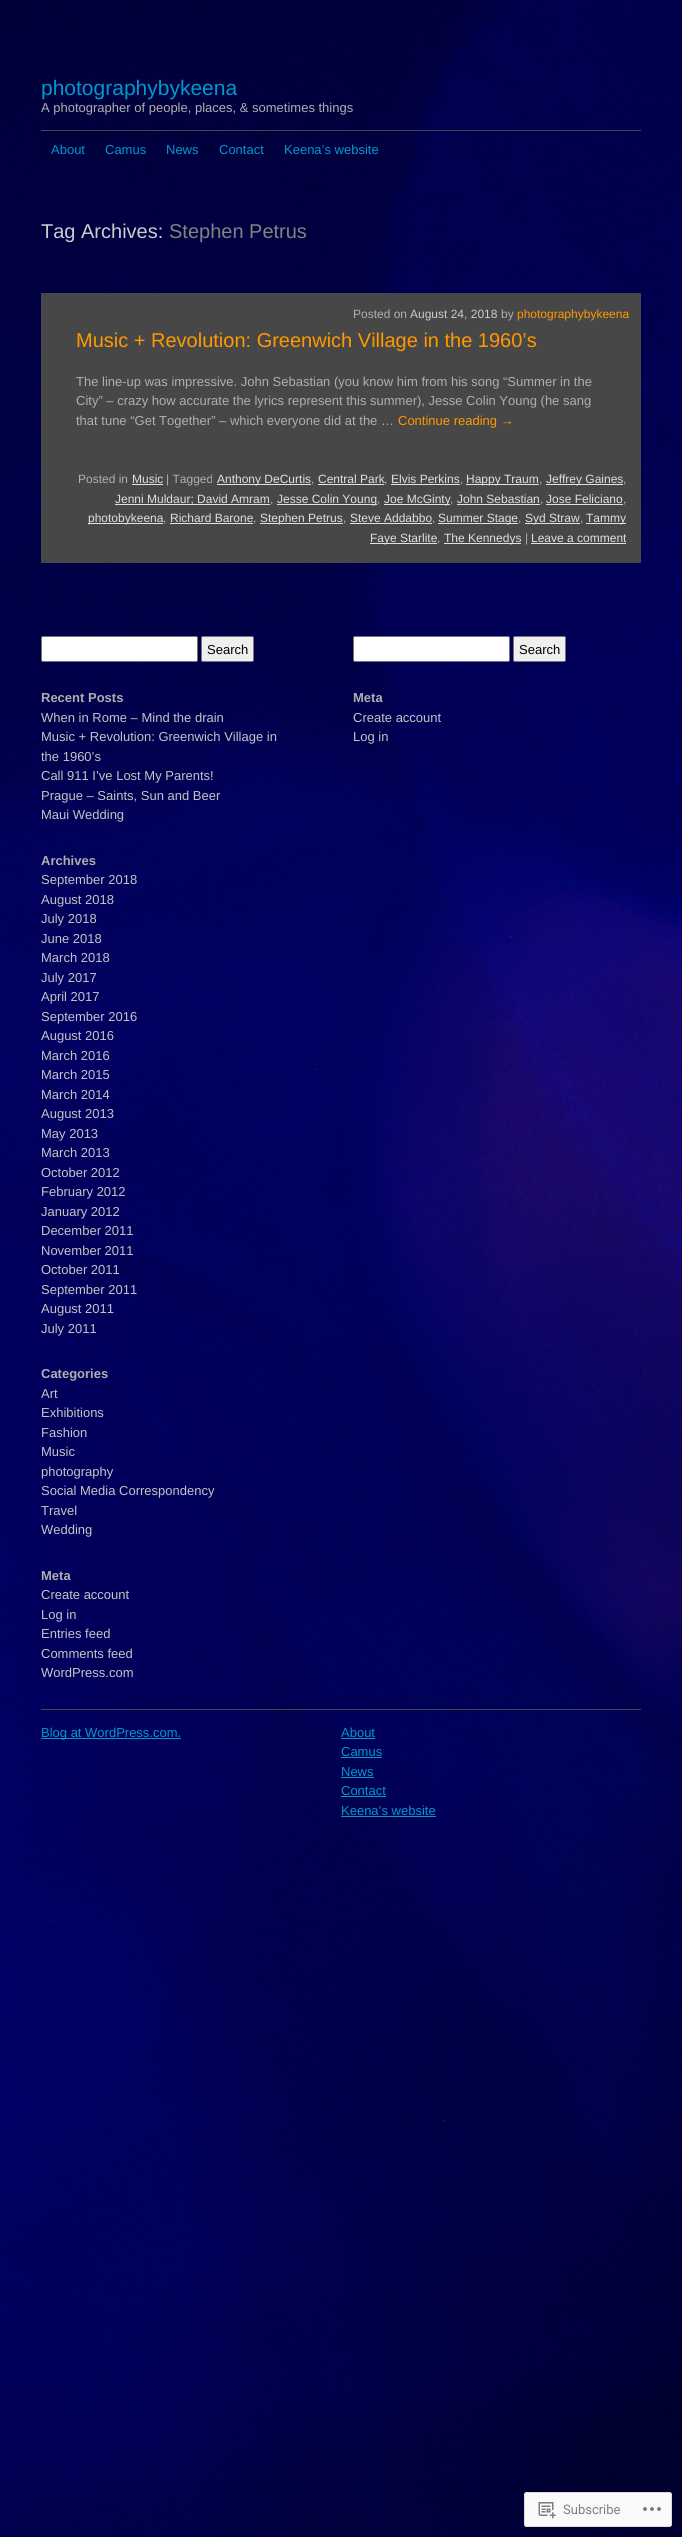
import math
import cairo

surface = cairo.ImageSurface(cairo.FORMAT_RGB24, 682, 2537)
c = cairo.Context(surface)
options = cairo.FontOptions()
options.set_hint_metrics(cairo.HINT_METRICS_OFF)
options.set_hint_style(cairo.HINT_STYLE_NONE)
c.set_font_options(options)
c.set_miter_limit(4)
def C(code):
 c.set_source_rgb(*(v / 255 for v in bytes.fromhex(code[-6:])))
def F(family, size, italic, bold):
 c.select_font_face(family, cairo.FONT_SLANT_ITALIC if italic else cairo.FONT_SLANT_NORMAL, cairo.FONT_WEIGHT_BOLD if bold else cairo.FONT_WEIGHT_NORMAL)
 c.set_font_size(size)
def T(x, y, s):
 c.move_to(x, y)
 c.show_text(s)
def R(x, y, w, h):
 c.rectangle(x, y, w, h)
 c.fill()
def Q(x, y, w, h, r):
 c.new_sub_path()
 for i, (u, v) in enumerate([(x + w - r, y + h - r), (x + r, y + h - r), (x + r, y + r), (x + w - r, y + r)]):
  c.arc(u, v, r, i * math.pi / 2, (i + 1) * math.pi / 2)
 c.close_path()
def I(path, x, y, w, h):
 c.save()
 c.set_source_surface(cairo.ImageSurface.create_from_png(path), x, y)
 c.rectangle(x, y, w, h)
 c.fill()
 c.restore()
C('ffffff')
c.paint()
I('1.png',0,0,682,2537)
F('Liberation Sans',21,0,0)
C('0099cc')
T(41,95,'photographybykeena')
F('Liberation Sans',13,0,0)
C('afafaf')
T(41,112,'A photographer of people, places, & sometimes things')
C('474747')
R(41,130,600,1)
C('0099cc')
T(51,154,'About')
T(105,154,'Camus')
T(166,154,'News')
T(219,154,'Contact')
T(284,154,'Keena’s website')
F('Liberation Sans',20,0,0)
C('cccccc')
T(41,238,'Tag Archives:')
C('828282')
T(169,238,'Stephen Petrus')
C('474747')
R(41,293,600,270)
F('Liberation Sans',12,0,0)
C('afafaf')
T(353,318,'Posted on')
C('cccccc')
T(410,318,'August 24, 2018')
C('afafaf')
T(501,318,'by')
C('ff9900')
T(517,318,'photographybykeena')
F('Liberation Sans',20,0,0)
T(76,347,'Music + Revolution: Greenwich Village in the 1960’s')
F('Liberation Sans',13,0,0)
C('afafaf')
T(76,386,'The line-up was impressive. John Sebastian (you know him from his song “Summer in the')
T(76,405,'City” – crazy how accurate the lyrics represent this summer), Jesse Colin Young (he sang')
T(76,425,'that tune “Get Together” – which everyone did at the …')
C('ff9900')
T(398,425,'Continue reading →')
F('Liberation Sans',12,0,0)
C('afafaf')
T(78,483,'Posted in')
C('e0e0e0')
T(132,483,'Music')
R(132,484,31,1)
C('afafaf')
T(166,483,'| Tagged')
C('e0e0e0')
R(217,484,94,1)
T(217,483,'Anthony DeCurtis')
C('afafaf')
T(311,483,',')
C('e0e0e0')
T(318,483,'Central Park')
C('afafaf')
T(384,483,',')
C('e0e0e0')
R(318,484,66,1)
T(391,483,'Elvis Perkins')
C('afafaf')
T(460,483,',')
C('e0e0e0')
R(391,484,69,1)
R(466,484,73,1)
T(466,483,'Happy Traum')
C('afafaf')
T(539,483,',')
C('e0e0e0')
R(546,484,77,1)
T(546,483,'Jeffrey Gaines')
C('afafaf')
T(623,483,',')
C('e0e0e0')
R(115,504,155,1)
T(115,503,'Jenni Muldaur; David Amram')
C('afafaf')
T(270,503,',')
C('e0e0e0')
R(277,504,100,1)
T(277,503,'Jesse Colin Young')
C('afafaf')
T(377,503,',')
C('e0e0e0')
R(384,504,66,1)
T(384,503,'Joe McGinty')
C('afafaf')
T(450,503,',')
C('e0e0e0')
T(457,503,'John Sebastian')
C('afafaf')
T(540,503,',')
C('e0e0e0')
R(457,504,83,1)
T(546,503,'Jose Feliciano')
C('afafaf')
T(623,503,',')
C('e0e0e0')
R(546,504,77,1)
R(88,523,75,1)
T(88,522,'photobykeena')
C('afafaf')
T(163,522,',')
C('e0e0e0')
T(170,522,'Richard Barone')
C('afafaf')
T(253,522,',')
C('e0e0e0')
R(170,523,83,1)
R(260,523,83,1)
T(260,522,'Stephen Petrus')
C('afafaf')
T(343,522,',')
C('e0e0e0')
T(350,522,'Steve Addabbo')
C('afafaf')
T(432,522,',')
C('e0e0e0')
R(350,523,82,1)
R(438,523,80,1)
T(438,522,'Summer Stage')
C('afafaf')
T(518,522,',')
C('e0e0e0')
R(525,523,55,1)
T(525,522,'Syd Straw')
C('afafaf')
T(580,522,',')
C('e0e0e0')
R(586,523,40,1)
T(586,522,'Tammy')
R(370,543,67,1)
T(370,542,'Faye Starlite')
C('afafaf')
T(437,542,',')
C('e0e0e0')
R(444,543,77,1)
T(444,542,'The Kennedys')
C('afafaf')
T(525,542,'|')
C('e0e0e0')
T(531,542,'Leave a comment')
R(531,543,95,1)
C('ffffff')
Q(41.5,636.5,156,25,1.5)
c.fill_preserve()
C('767676')
c.set_line_width(1)
c.stroke()
C('efefef')
Q(201.5,636.5,52,25,1.5)
c.fill_preserve()
C('767676')
c.stroke()
F('Liberation Sans',13,0,0)
C('000000')
T(207,654,'Search')
F('Liberation Sans',13,0,1)
C('afafaf')
T(41,702,'Recent Posts')
F('Liberation Sans',13,0,0)
C('c4c4c4')
T(41,722,'When in Rome – Mind the drain')
T(41,741,'Music + Revolution: Greenwich Village in')
T(41,761,'the 1960’s')
T(41,780,'Call 911 I’ve Lost My Parents!')
T(41,800,'Prague – Saints, Sun and Beer')
T(41,819,'Maui Wedding')
F('Liberation Sans',13,0,1)
C('afafaf')
T(41,865,'Archives')
F('Liberation Sans',13,0,0)
C('c4c4c4')
T(41,884,'September 2018')
T(41,904,'August 2018')
T(41,923,'July 2018')
T(41,943,'June 2018')
T(41,962,'March 2018')
T(41,982,'July 2017')
T(41,1001,'April 2017')
T(41,1021,'September 2016')
T(41,1040,'August 2016')
T(41,1060,'March 2016')
T(41,1079,'March 2015')
T(41,1099,'March 2014')
T(41,1118,'August 2013')
T(41,1138,'May 2013')
T(41,1157,'March 2013')
T(41,1177,'October 2012')
T(41,1196,'February 2012')
T(41,1216,'January 2012')
T(41,1235,'December 2011')
T(41,1255,'November 2011')
T(41,1274,'October 2011')
T(41,1294,'September 2011')
T(41,1313,'August 2011')
T(41,1333,'July 2011')
F('Liberation Sans',13,0,1)
C('afafaf')
T(41,1378,'Categories')
F('Liberation Sans',13,0,0)
C('c4c4c4')
T(41,1398,'Art')
T(41,1417,'Exhibitions')
T(41,1437,'Fashion')
T(41,1456,'Music')
T(41,1476,'photography')
T(41,1495,'Social Media Correspondency')
T(41,1515,'Travel')
T(41,1534,'Wedding')
F('Liberation Sans',13,0,1)
C('afafaf')
T(41,1580,'Meta')
F('Liberation Sans',13,0,0)
C('c4c4c4')
T(41,1599,'Create account')
T(41,1619,'Log in')
T(41,1638,'Entries feed')
T(41,1658,'Comments feed')
T(41,1677,'WordPress.com')
C('ffffff')
Q(353.5,636.5,156,25,1.5)
c.fill_preserve()
C('767676')
c.stroke()
C('efefef')
Q(513.5,636.5,52,25,1.5)
c.fill_preserve()
C('767676')
c.stroke()
C('000000')
T(519,654,'Search')
F('Liberation Sans',13,0,1)
C('afafaf')
T(353,702,'Meta')
F('Liberation Sans',13,0,0)
C('c4c4c4')
T(353,722,'Create account')
T(353,741,'Log in')
C('474747')
R(41,1709,600,1)
C('0099cc')
R(41,1738,140,1)
T(41,1737,'Blog at WordPress.com.')
T(341,1737,'About')
R(341,1738,34,1)
T(341,1756,'Camus')
R(341,1757,41,1)
T(341,1776,'News')
R(341,1777,33,1)
T(341,1795,'Contact')
R(341,1796,45,1)
T(341,1815,'Keena’s website')
R(341,1816,95,1)
c.set_source_rgba(1,1,1,0.98)
Q(524,2492,148,35,3)
c.fill()
Q(524.5,2492.5,147,34,2.5)
c.set_source_rgba(0.863,0.863,0.871,0.98)
c.stroke()
I('2.png',538,2502,18,17)
F('Roboto',13,0,0)
C('7b7f84')
T(563,2514,'Subscribe')
I('3.png',643,2507,18,4)
surface.write_to_png('o.png')
